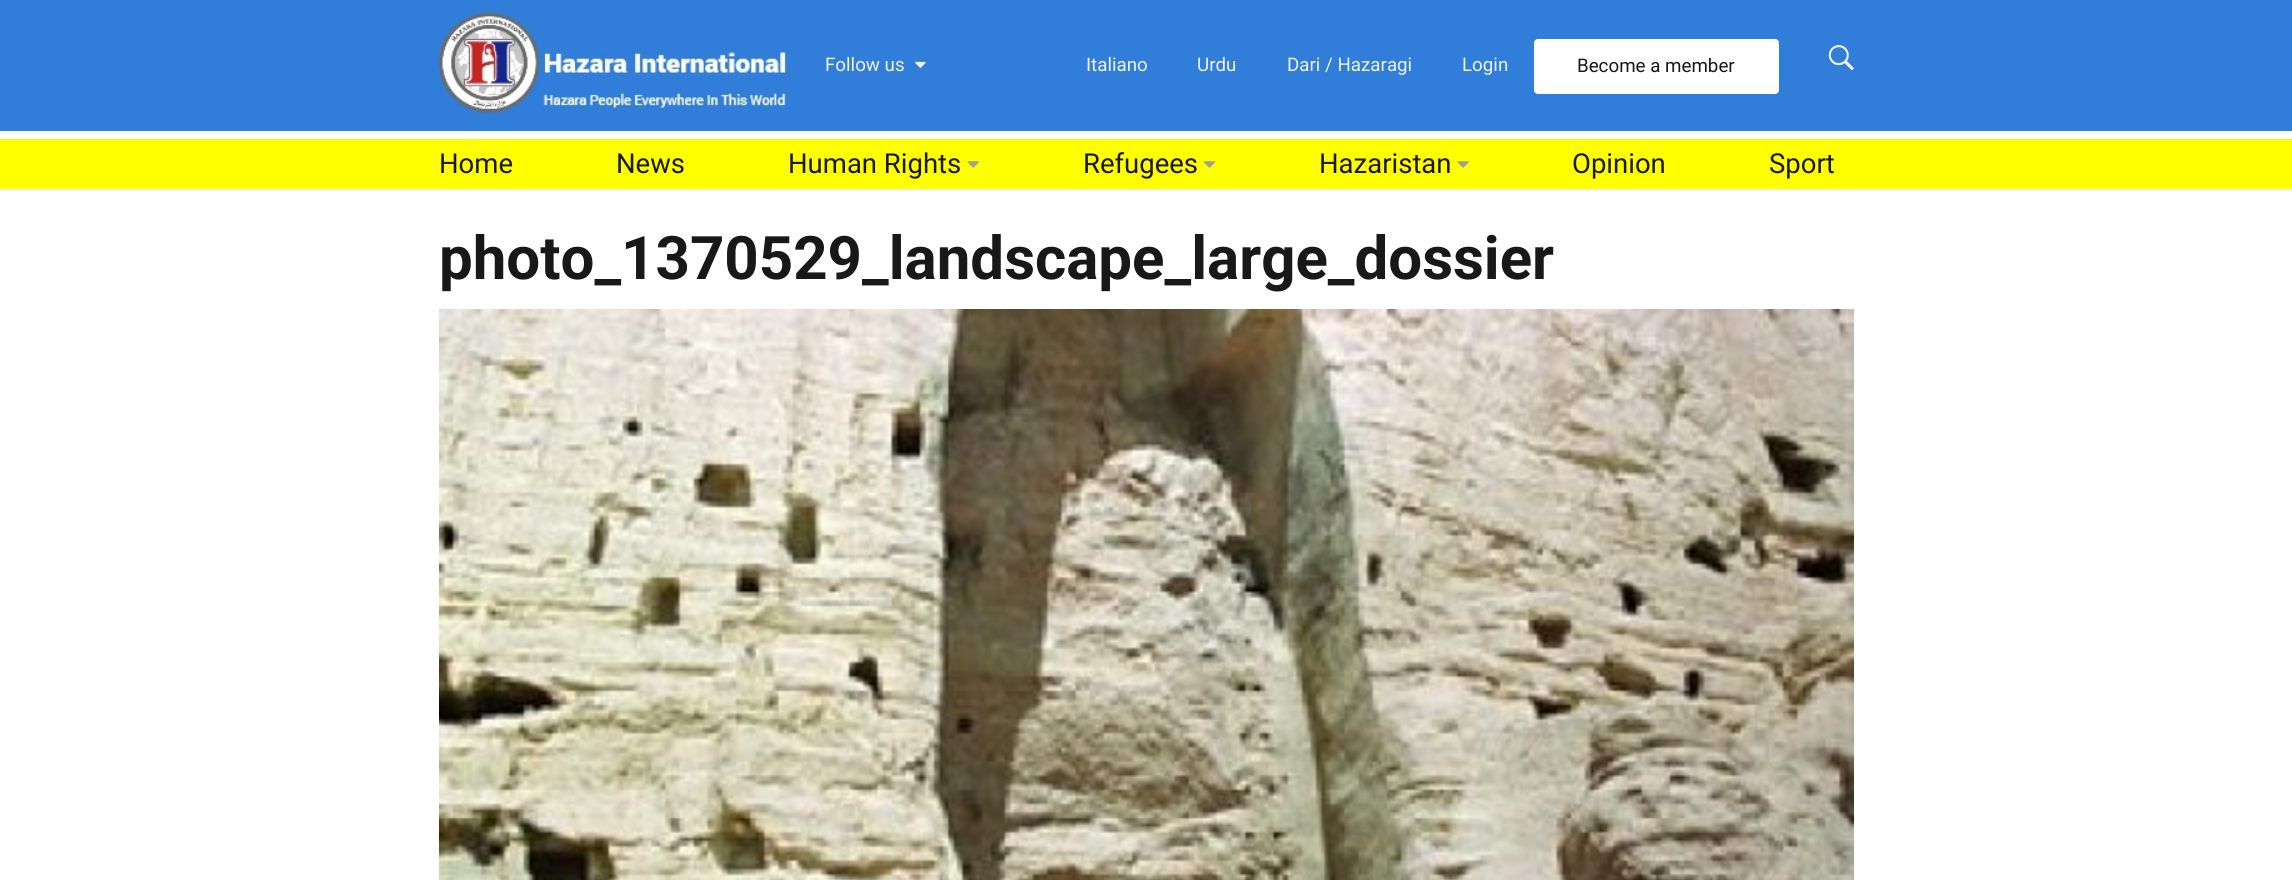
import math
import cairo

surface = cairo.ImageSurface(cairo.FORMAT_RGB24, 2292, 880)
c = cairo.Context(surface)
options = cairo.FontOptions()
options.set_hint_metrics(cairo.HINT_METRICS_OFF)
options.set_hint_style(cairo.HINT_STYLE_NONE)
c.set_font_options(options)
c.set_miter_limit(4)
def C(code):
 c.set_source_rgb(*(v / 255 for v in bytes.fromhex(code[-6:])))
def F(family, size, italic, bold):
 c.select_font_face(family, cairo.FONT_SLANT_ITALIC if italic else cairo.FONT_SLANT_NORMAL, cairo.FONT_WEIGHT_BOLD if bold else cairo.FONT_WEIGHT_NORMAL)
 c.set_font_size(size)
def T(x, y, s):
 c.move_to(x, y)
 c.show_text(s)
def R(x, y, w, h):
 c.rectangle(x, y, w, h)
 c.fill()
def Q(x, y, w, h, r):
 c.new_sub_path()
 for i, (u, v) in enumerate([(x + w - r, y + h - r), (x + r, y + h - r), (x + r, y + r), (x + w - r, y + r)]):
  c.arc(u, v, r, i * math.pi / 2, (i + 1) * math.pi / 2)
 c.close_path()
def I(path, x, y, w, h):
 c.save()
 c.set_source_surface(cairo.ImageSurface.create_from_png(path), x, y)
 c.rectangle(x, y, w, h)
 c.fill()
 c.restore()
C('ffffff')
c.paint()
C('307ed9')
R(0,0,2292,131)
I('1.png',438,12,350,102)
F('Roboto',18.75,0,0)
C('f1f1f1')
T(825,71,'Follow us')
I('2.png',915,61,11,7)
T(1086,71,'Italiano')
T(1197,71,'Urdu')
T(1287,71,'Dari / Hazaragi')
T(1462,71,'Login')
C('ffffff')
Q(1534,39,245,55,4)
c.fill()
C('181818')
T(1577,72,'Become a member')
I('3.png',1828,45,26,26)
C('ffff00')
R(0,139,2292,50)
C('eaeaea')
R(0,189,2292,1)
F('Roboto',27.5,0,0)
C('181818')
T(439,173,'Home')
T(616,173,'News')
T(788,173,'Human Rights')
I('4.png',967,161,12,7)
T(1083,173,'Refugees')
I('5.png',1203,161,13,7)
T(1319,173,'Hazaristan')
I('4.png',1457,161,12,7)
T(1572,173,'Opinion')
T(1769,173,'Sport')
F('Roboto',60,0,1)
T(439,279,'photo_1370529_landscape_large_dossier')
I('6.png',439,309,1415,571)
surface.write_to_png('o.png')
